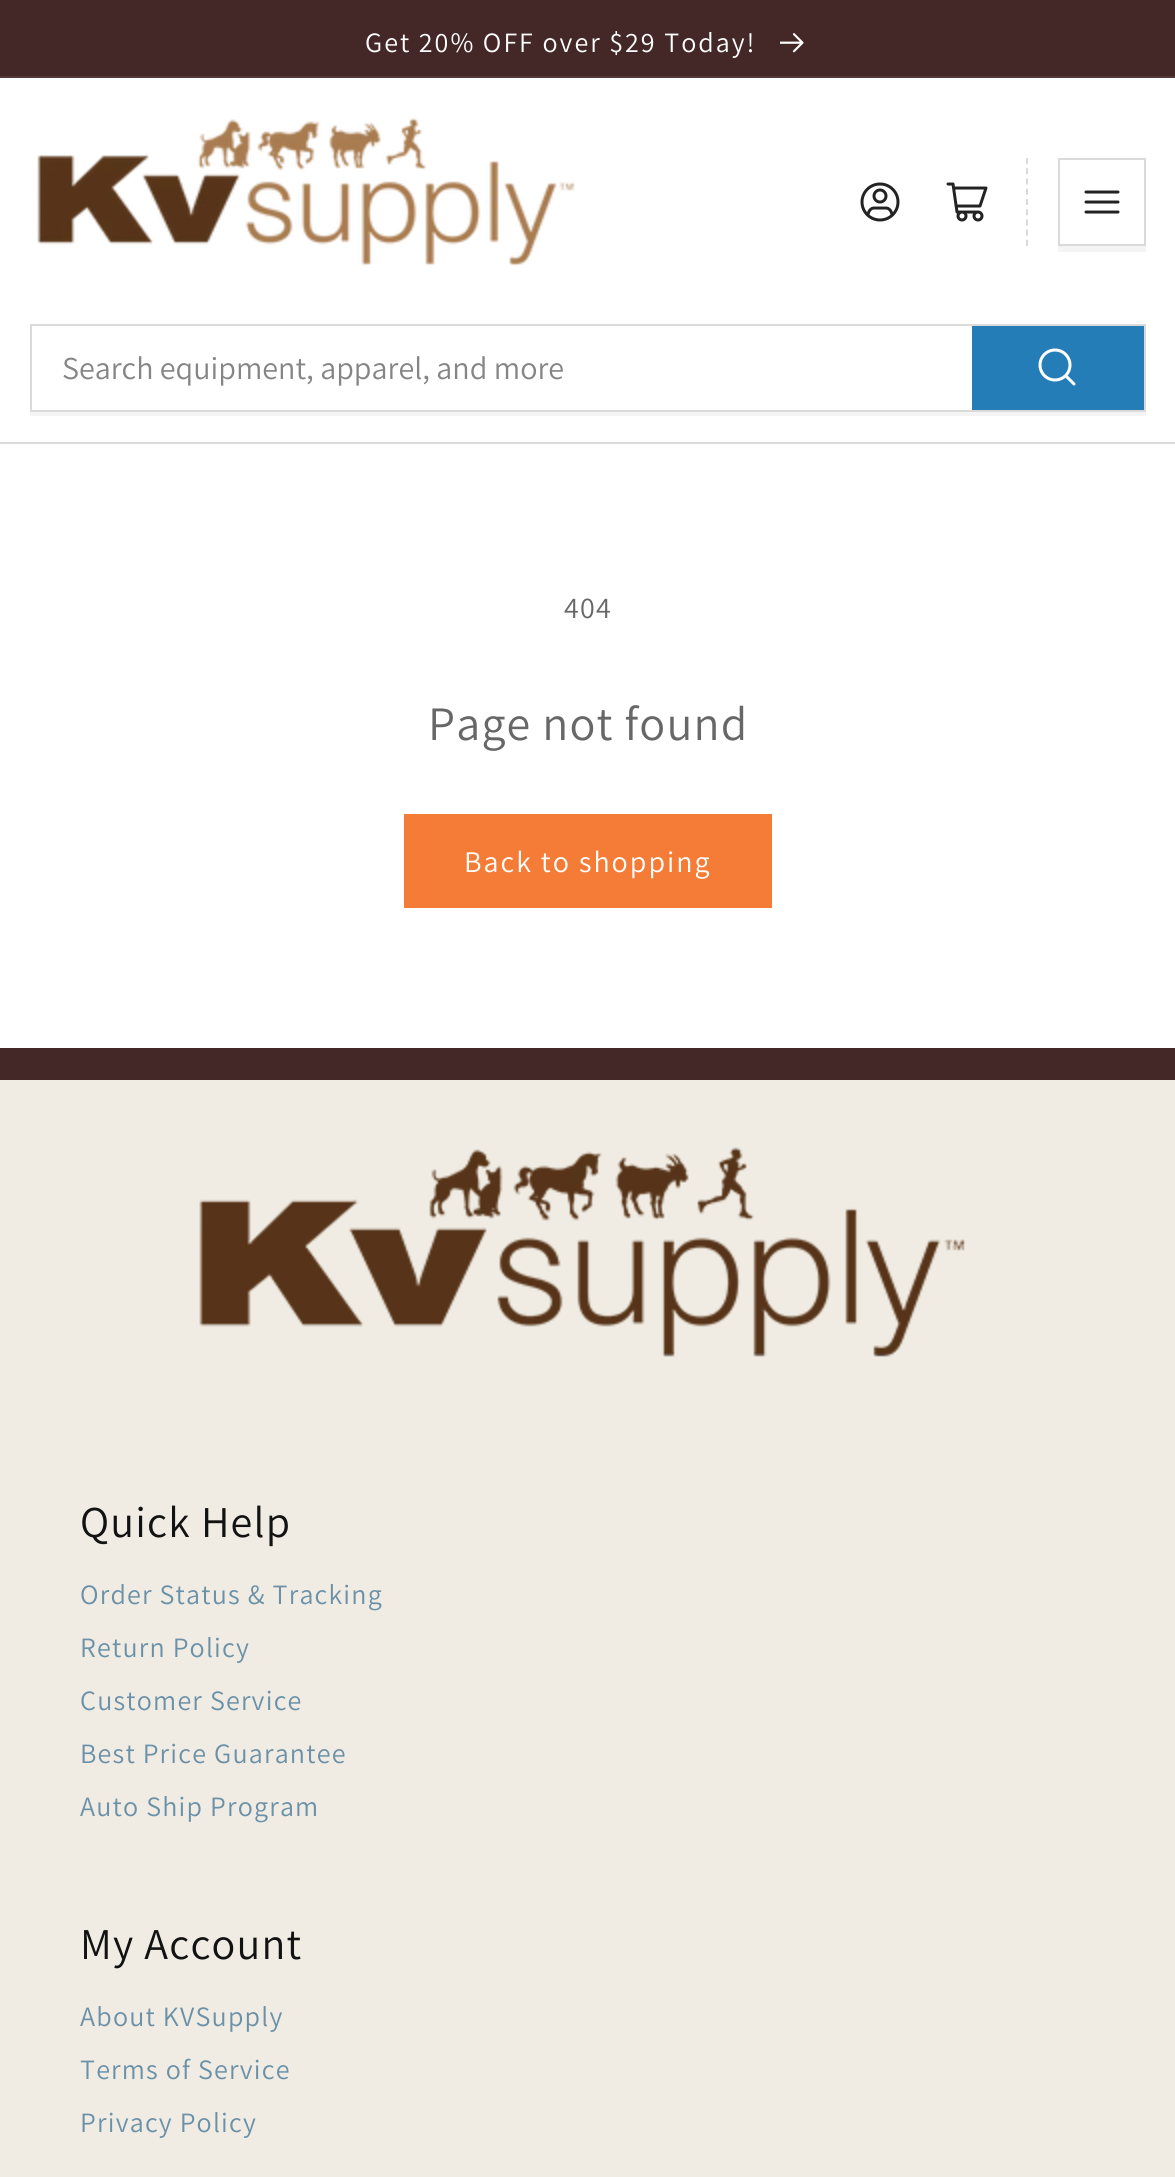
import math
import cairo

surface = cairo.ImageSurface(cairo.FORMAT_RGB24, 1175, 2177)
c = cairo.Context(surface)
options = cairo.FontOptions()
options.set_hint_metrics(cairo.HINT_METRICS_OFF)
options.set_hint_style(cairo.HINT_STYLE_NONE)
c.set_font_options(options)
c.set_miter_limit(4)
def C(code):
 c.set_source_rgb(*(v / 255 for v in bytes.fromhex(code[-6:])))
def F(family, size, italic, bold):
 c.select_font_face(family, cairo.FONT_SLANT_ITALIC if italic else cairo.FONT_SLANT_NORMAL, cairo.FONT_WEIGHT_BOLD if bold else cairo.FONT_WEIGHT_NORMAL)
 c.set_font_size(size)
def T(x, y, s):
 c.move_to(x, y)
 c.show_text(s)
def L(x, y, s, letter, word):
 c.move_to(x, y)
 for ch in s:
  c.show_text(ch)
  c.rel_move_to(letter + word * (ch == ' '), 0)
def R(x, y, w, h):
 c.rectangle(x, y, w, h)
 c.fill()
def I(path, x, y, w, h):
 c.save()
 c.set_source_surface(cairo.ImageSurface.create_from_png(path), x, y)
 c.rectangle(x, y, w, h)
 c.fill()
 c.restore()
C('ffffff')
c.paint()
C('442727')
R(0,0,1175,76)
C('533838')
R(0,76,1175,2)
F('Assistant',28,0,0)
C('ffffff')
L(365,52,'Get 20% OFF over $29 Today!',2,0)
I('1.png',780,33,24,20)
C('dadada')
R(0,442,1175,2)
I('2.png',37,117,538,149)
I('3.png',860,182,40,40)
I('4.png',946,182,42,40)
c.new_path()
c.move_to(1027,158)
c.line_to(1027,246)
c.set_dash([6,4.24])
c.stroke()
C('f4f4f4')
R(1058,246,88,6)
c.rectangle(1059,159,86,86)
C('dadada')
c.set_dash([])
c.stroke()
I('5.png',1084,190,36,24)
C('f4f4f4')
R(30,412,1116,4)
c.rectangle(31,325,1114,86)
C('dadada')
c.stroke()
F('Assistant',32,0,0)
C('858585')
T(62,379,'Search equipment, apparel, and more')
C('247db6')
R(972,326,172,84)
I('6.png',1038,348,38,38)
F('Assistant',30,0,0)
C('676767')
L(564,618,'404',1.2,0)
F('Assistant',48,0,0)
L(428,740,'Page not found',1.2,0)
C('f57c36')
R(404,814,368,94)
F('Assistant',30,0,0)
C('ffffff')
L(464,872,'Back to shopping',2,0)
C('f0ece3')
R(0,1080,1175,1097)
C('442727')
R(0,1048,1175,32)
I('7.png',199,1147,766,210)
F('Assistant',44,0,0)
C('121212')
L(80,1537,'Quick Help',1.2,0)
F('Assistant',28,0,0)
C('6a91a8')
L(80,1604,'Order Status & Tracking',1.2,0)
L(80,1657,'Return Policy',1.2,0)
L(80,1710,'Customer Service',1.2,0)
L(80,1763,'Best Price Guarantee',1.2,0)
L(80,1816,'Auto Ship Program',1.2,0)
F('Assistant',44,0,0)
C('121212')
L(80,1959,'My Account',1.2,0)
F('Assistant',28,0,0)
C('6a91a8')
L(80,2026,'About KVSupply',1.2,0)
L(80,2079,'Terms of Service',1.2,0)
L(80,2132,'Privacy Policy',1.2,0)
surface.write_to_png('o.png')
